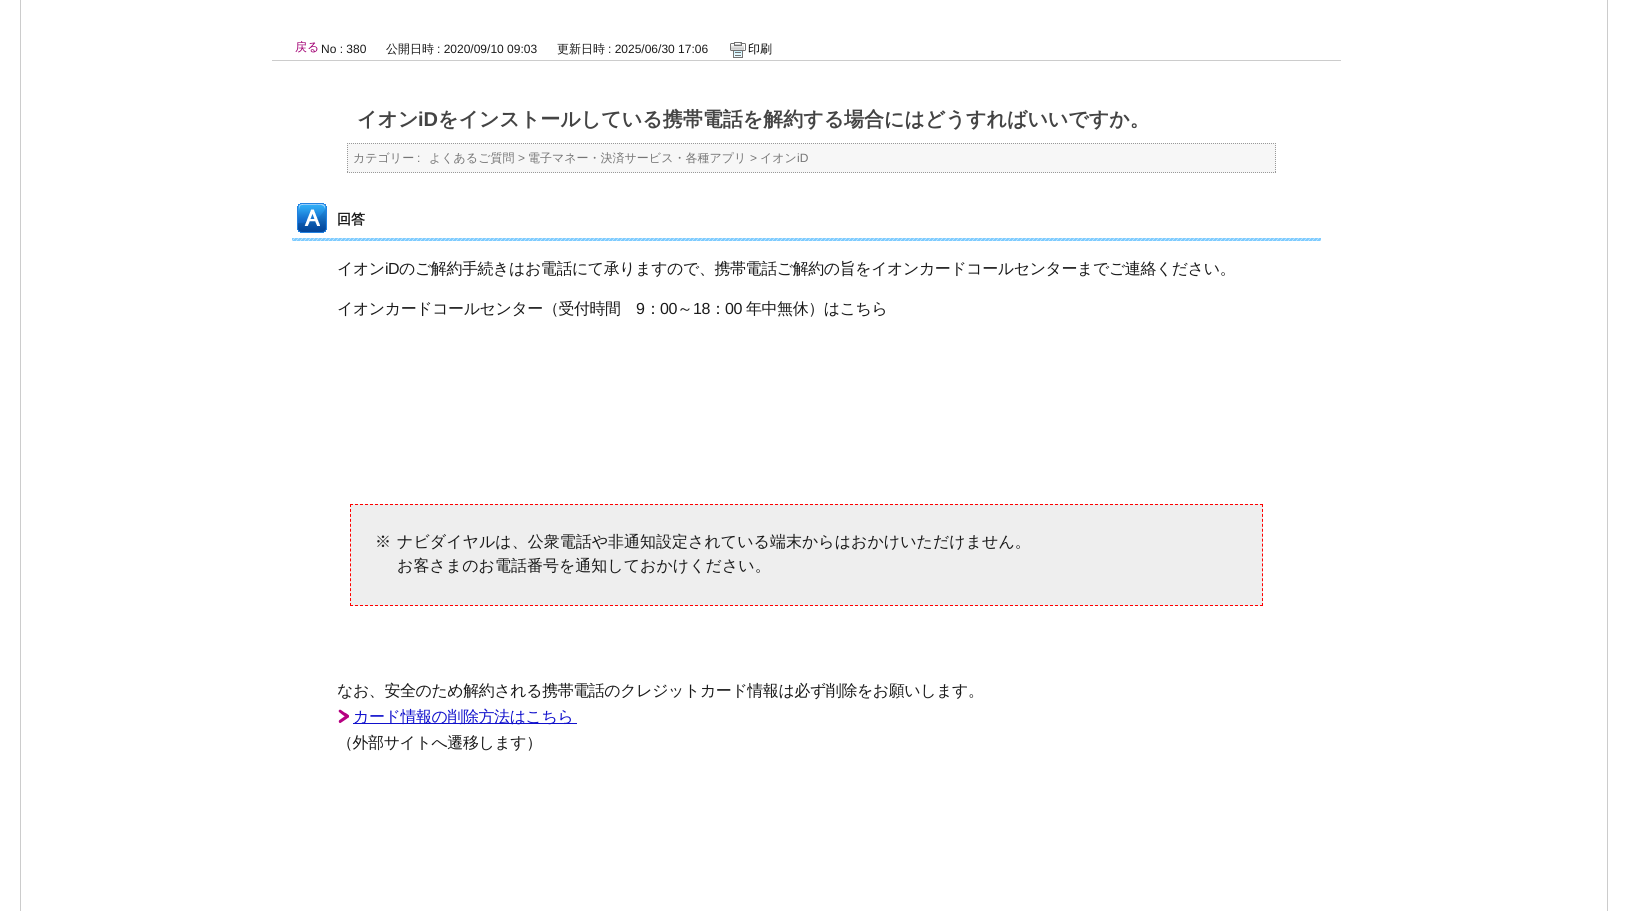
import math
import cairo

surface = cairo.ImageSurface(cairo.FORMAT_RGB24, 1628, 911)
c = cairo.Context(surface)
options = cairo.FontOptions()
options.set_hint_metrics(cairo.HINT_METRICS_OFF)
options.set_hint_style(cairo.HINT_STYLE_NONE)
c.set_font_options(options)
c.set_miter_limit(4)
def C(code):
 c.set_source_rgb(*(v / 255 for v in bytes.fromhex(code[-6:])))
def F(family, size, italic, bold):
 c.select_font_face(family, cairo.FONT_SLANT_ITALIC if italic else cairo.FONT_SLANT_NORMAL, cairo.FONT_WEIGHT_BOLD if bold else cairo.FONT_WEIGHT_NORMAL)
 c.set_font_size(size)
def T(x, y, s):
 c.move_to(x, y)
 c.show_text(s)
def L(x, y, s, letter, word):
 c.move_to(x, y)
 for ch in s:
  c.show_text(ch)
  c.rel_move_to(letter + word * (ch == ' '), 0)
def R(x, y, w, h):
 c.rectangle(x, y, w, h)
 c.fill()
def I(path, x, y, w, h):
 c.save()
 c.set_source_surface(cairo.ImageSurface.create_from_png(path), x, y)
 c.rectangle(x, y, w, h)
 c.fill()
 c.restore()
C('ffffff')
c.paint()
c.rectangle(20.5,-.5,1587,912)
C('cccccc')
c.set_line_width(1)
c.stroke()
R(272,60,1069,1)
F('WenQuanYi Zen Hei Medium',12,0,0)
C('a20073')
T(295,51,'戻る')
F('Liberation Sans',12,0,0)
C('1a1a1a')
T(321,53,'No : 380')
F('WenQuanYi Zen Hei Medium',12,0,0)
T(386,53,'公開日時')
F('Liberation Sans',12,0,0)
T(437,53,': 2020/09/10 09:03')
F('WenQuanYi Zen Hei Medium',12,0,0)
T(557,53,'更新日時')
F('Liberation Sans',12,0,0)
T(608,53,': 2025/06/30 17:06')
I('1.png',730,42,16,16)
F('WenQuanYi Zen Hei Medium',12,0,0)
C('000000')
T(748,53,'印刷')
F('WenQuanYi Zen Hei',20,0,1)
C('444444')
T(357,126,'イオン')
F('Liberation Sans',20,0,1)
T(418,126,'iD')
F('WenQuanYi Zen Hei',20,0,1)
T(438,126,'をインストールしている携帯電話を解約する場合にはどうすればいいですか。')
C('f7f7f7')
R(347,143,929,30)
c.new_path()
c.move_to(347,143.5)
c.line_to(1276,143.5)
C('999999')
c.set_dash([1,1])
c.stroke()
c.new_path()
c.move_to(1275.5,143)
c.line_to(1275.5,173)
c.stroke()
c.new_path()
c.move_to(347,172.5)
c.line_to(1276,172.5)
c.stroke()
c.new_path()
c.move_to(347.5,143)
c.line_to(347.5,173)
c.stroke()
F('WenQuanYi Zen Hei Medium',12,0,0)
C('767676')
T(353,162,'カテゴリー')
F('Liberation Sans',12,0,0)
T(417,162,':')
F('WenQuanYi Zen Hei Medium',12,0,0)
T(429,162,'よくあるご質問')
F('Liberation Sans',12,0,0)
T(518,162,'>')
F('WenQuanYi Zen Hei Medium',12,0,0)
T(528,162,'電子マネー・決済サービス・各種アプリ')
F('Liberation Sans',12,0,0)
T(750,162,'>')
F('WenQuanYi Zen Hei Medium',12,0,0)
T(760,162,'イオン')
F('Liberation Sans',12,0,0)
T(797,162,'iD')
I('2.png',292,238,1029,3)
I('3.png',297,203,30,30)
F('WenQuanYi Zen Hei',14,0,1)
C('1a1a1a')
T(337,224,'回答')
F('WenQuanYi Zen Hei Medium',16,0,0)
L(337,274,'イオン',-.45,0)
F('Liberation Sans',16,0,0)
L(385,274,'iD',-.45,0)
F('WenQuanYi Zen Hei Medium',16,0,0)
L(399,274,'のご解約手続きはお電話にて承りますので、携帯電話ご解約の旨をイオンカードコールセンターまでご連絡ください。',-.45,0)
L(337,314,'イオンカードコールセンター（受付時間',-.45,0)
F('Liberation Sans',16,0,0)
L(636,314,'9',-.45,0)
F('WenQuanYi Zen Hei Medium',16,0,0)
L(645,314,'：',-.45,0)
F('Liberation Sans',16,0,0)
L(660,314,'00',-.45,0)
F('WenQuanYi Zen Hei Medium',16,0,0)
L(677,314,'～',-.45,0)
F('Liberation Sans',16,0,0)
L(693,314,'18',-.45,0)
F('WenQuanYi Zen Hei Medium',16,0,0)
L(710,314,'：',-.45,0)
F('Liberation Sans',16,0,0)
L(725,314,'00',-.45,0)
F('WenQuanYi Zen Hei Medium',16,0,0)
L(746,314,'年中無休）はこちら',-.45,0)
C('eeeeee')
R(350,504,913,102)
c.new_path()
c.move_to(350,504.5)
c.line_to(1263,504.5)
C('ff0000')
c.set_dash([3,2])
c.stroke()
c.new_path()
c.move_to(1262.5,504)
c.line_to(1262.5,606)
c.set_dash([3,1.95])
c.stroke()
c.new_path()
c.move_to(350,605.5)
c.line_to(1263,605.5)
c.set_dash([3,2])
c.stroke()
c.new_path()
c.move_to(350.5,504)
c.line_to(350.5,606)
c.set_dash([3,1.95])
c.stroke()
C('1a1a1a')
T(375,547,'※')
T(397,547,'ナビダイヤルは、公衆電話や非通知設定されている端末からはおかけいただけません。')
T(397,571,'お客さまのお電話番号を通知しておかけください。')
L(337,696,'なお、安全のため解約される携帯電話のクレジットカード情報は必ず削除をお願いします。',-.45,0)
C('b60081')
c.new_path()
c.move_to(341,710)
c.line_to(344.5,712.5)
c.curve_to(346,713,349.5,715,349,717)
c.curve_to(347.5,719.5,343,715,341.5,714)
c.line_to(339,712)
c.curve_to(338,710.5,339.5,709,341,710)
c.close_path()
c.fill()
C('1111cc')
R(353,723,224,1)
L(353,722,'カード情報の削除方法はこちら',-.45,0)
C('b60081')
c.new_path()
c.move_to(339.5,720)
c.line_to(343,717.5)
c.curve_to(344,717,347,714,348.5,715)
c.curve_to(350.5,717.5,344.5,720,343.5,721)
c.line_to(340.5,723)
c.curve_to(339,723.5,338,721,339.5,720)
c.close_path()
c.fill()
C('1a1a1a')
L(337,748,'（外部サイトへ遷移します）',-.45,0)
surface.write_to_png('o.png')
